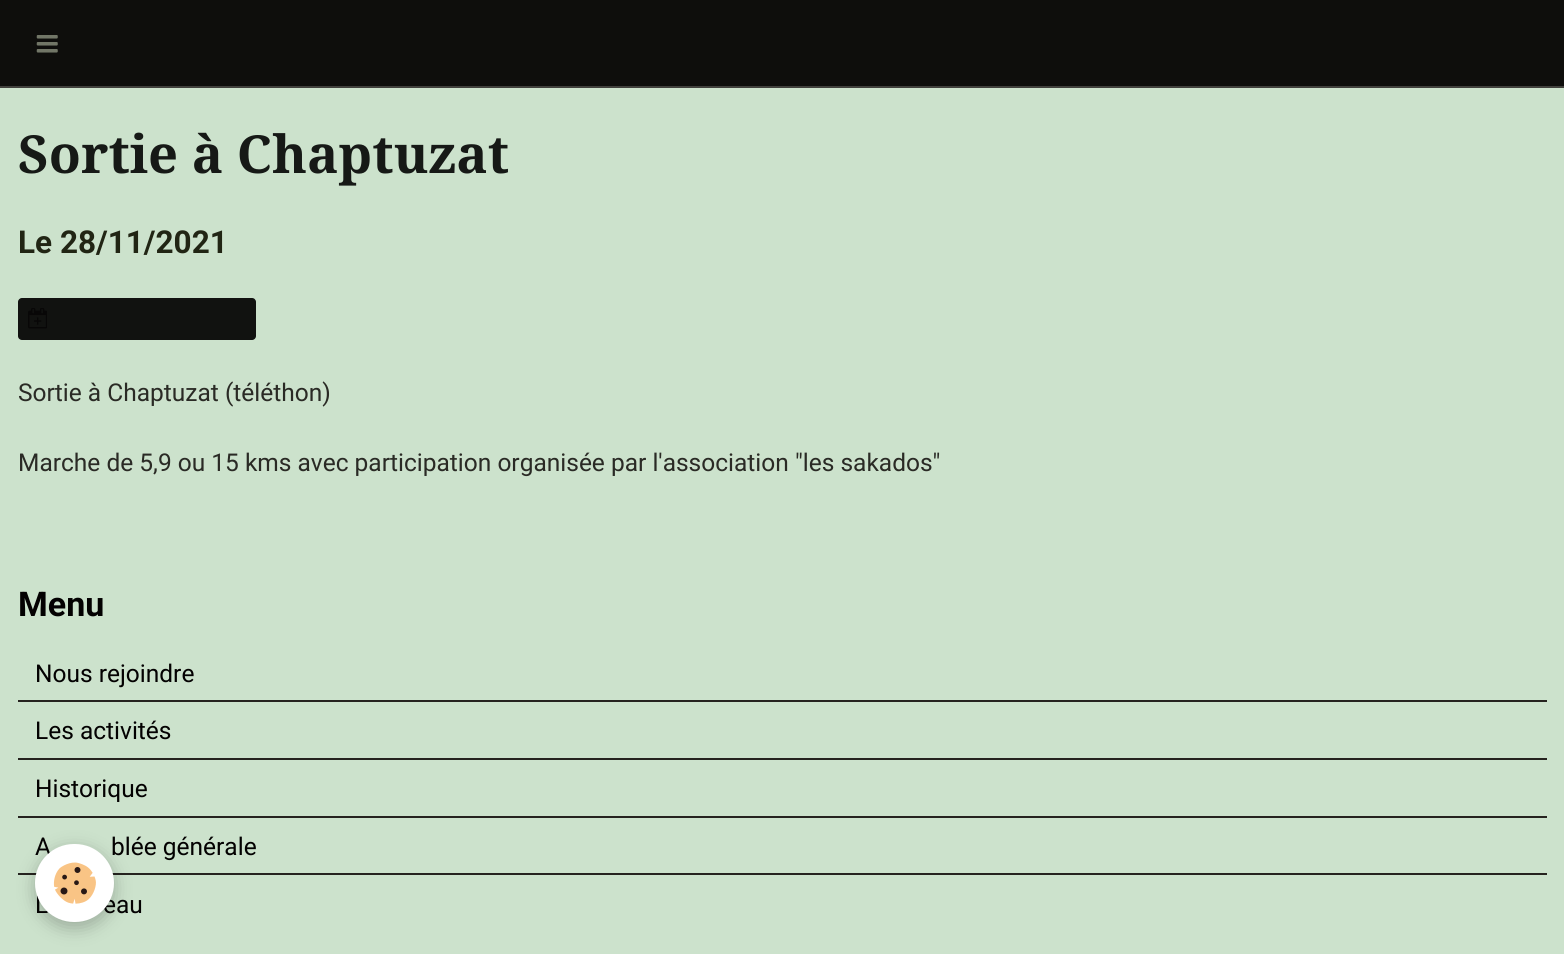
import math
import cairo

surface = cairo.ImageSurface(cairo.FORMAT_RGB24, 1564, 954)
c = cairo.Context(surface)
options = cairo.FontOptions()
options.set_hint_metrics(cairo.HINT_METRICS_OFF)
options.set_hint_style(cairo.HINT_STYLE_NONE)
c.set_font_options(options)
c.set_miter_limit(4)
def C(code):
 c.set_source_rgb(*(v / 255 for v in bytes.fromhex(code[-6:])))
def F(family, size, italic, bold):
 c.select_font_face(family, cairo.FONT_SLANT_ITALIC if italic else cairo.FONT_SLANT_NORMAL, cairo.FONT_WEIGHT_BOLD if bold else cairo.FONT_WEIGHT_NORMAL)
 c.set_font_size(size)
def T(x, y, s):
 c.move_to(x, y)
 c.show_text(s)
def R(x, y, w, h):
 c.rectangle(x, y, w, h)
 c.fill()
def Q(x, y, w, h, r):
 c.new_sub_path()
 for i, (u, v) in enumerate([(x + w - r, y + h - r), (x + r, y + h - r), (x + r, y + r), (x + w - r, y + r)]):
  c.arc(u, v, r, i * math.pi / 2, (i + 1) * math.pi / 2)
 c.close_path()
def S(x, y, w, h, r, blur, alpha):
 c.push_group_with_content(cairo.CONTENT_ALPHA)
 c.set_operator(cairo.OPERATOR_SOURCE)
 for i in range(15, -16, -2):
  e = blur * i / 6
  if min(w, h) + 2 * e > 0:
   c.set_source_rgba(0, 0, 0, alpha * math.erfc((i - 1) / 8.5) / 2)
   Q(x - e, y - e, w + 2 * e, h + 2 * e, max(0, min(r + e + blur * .6, min(w, h) / 2 + e)))
   c.fill()
 c.mask(c.pop_group())
def I(path, x, y, w, h):
 c.save()
 c.set_source_surface(cairo.ImageSurface.create_from_png(path), x, y)
 c.rectangle(x, y, w, h)
 c.fill()
 c.restore()
C('cce2cc')
c.paint()
C('0e0e0c')
R(0,0,1564,86)
C('41413d')
R(0,86,1564,2)
I('1.png',36,35,22,18)
F('Droid Serif',52.5,0,1)
C('161916')
T(18,173,'Sortie à Chaptuzat')
F('Roboto',31.5,0,1)
C('212514')
T(18,253,'Le 28/11/2021')
C('111210')
Q(18,298,238,42,4)
c.fill()
I('2.png',28,308,19,21)
F('Roboto',24.5,0,0)
C('2a2a25')
T(18,401,'Sortie à Chaptuzat (téléthon)')
T(18,471,'Marche de 5,9 ou 15 kms avec participation organisée par l\'association "les sakados"')
F('Roboto',34,0,1)
C('030101')
T(18,616,'Menu')
C('25231f')
R(18,700,1529,2)
F('Roboto',24.5,0,0)
C('030101')
T(35,682,'Nous rejoindre')
C('25231f')
R(18,758,1529,2)
C('030101')
T(35,739,'Les activités')
C('25231f')
R(18,816,1529,2)
C('030101')
T(35,797,'Historique')
C('25231f')
R(18,873,1529,2)
C('030101')
T(35,855,'A')
T(111,855,'blée générale')
T(35,913,'L')
T(103,913,'eau')
C('000000')
S(35,849,79,79,39.5,9,.24)
C('ffffff')
Q(35,844,79,78,39)
c.fill()
I('3.png',53,862,43,42)
surface.write_to_png('o.png')
